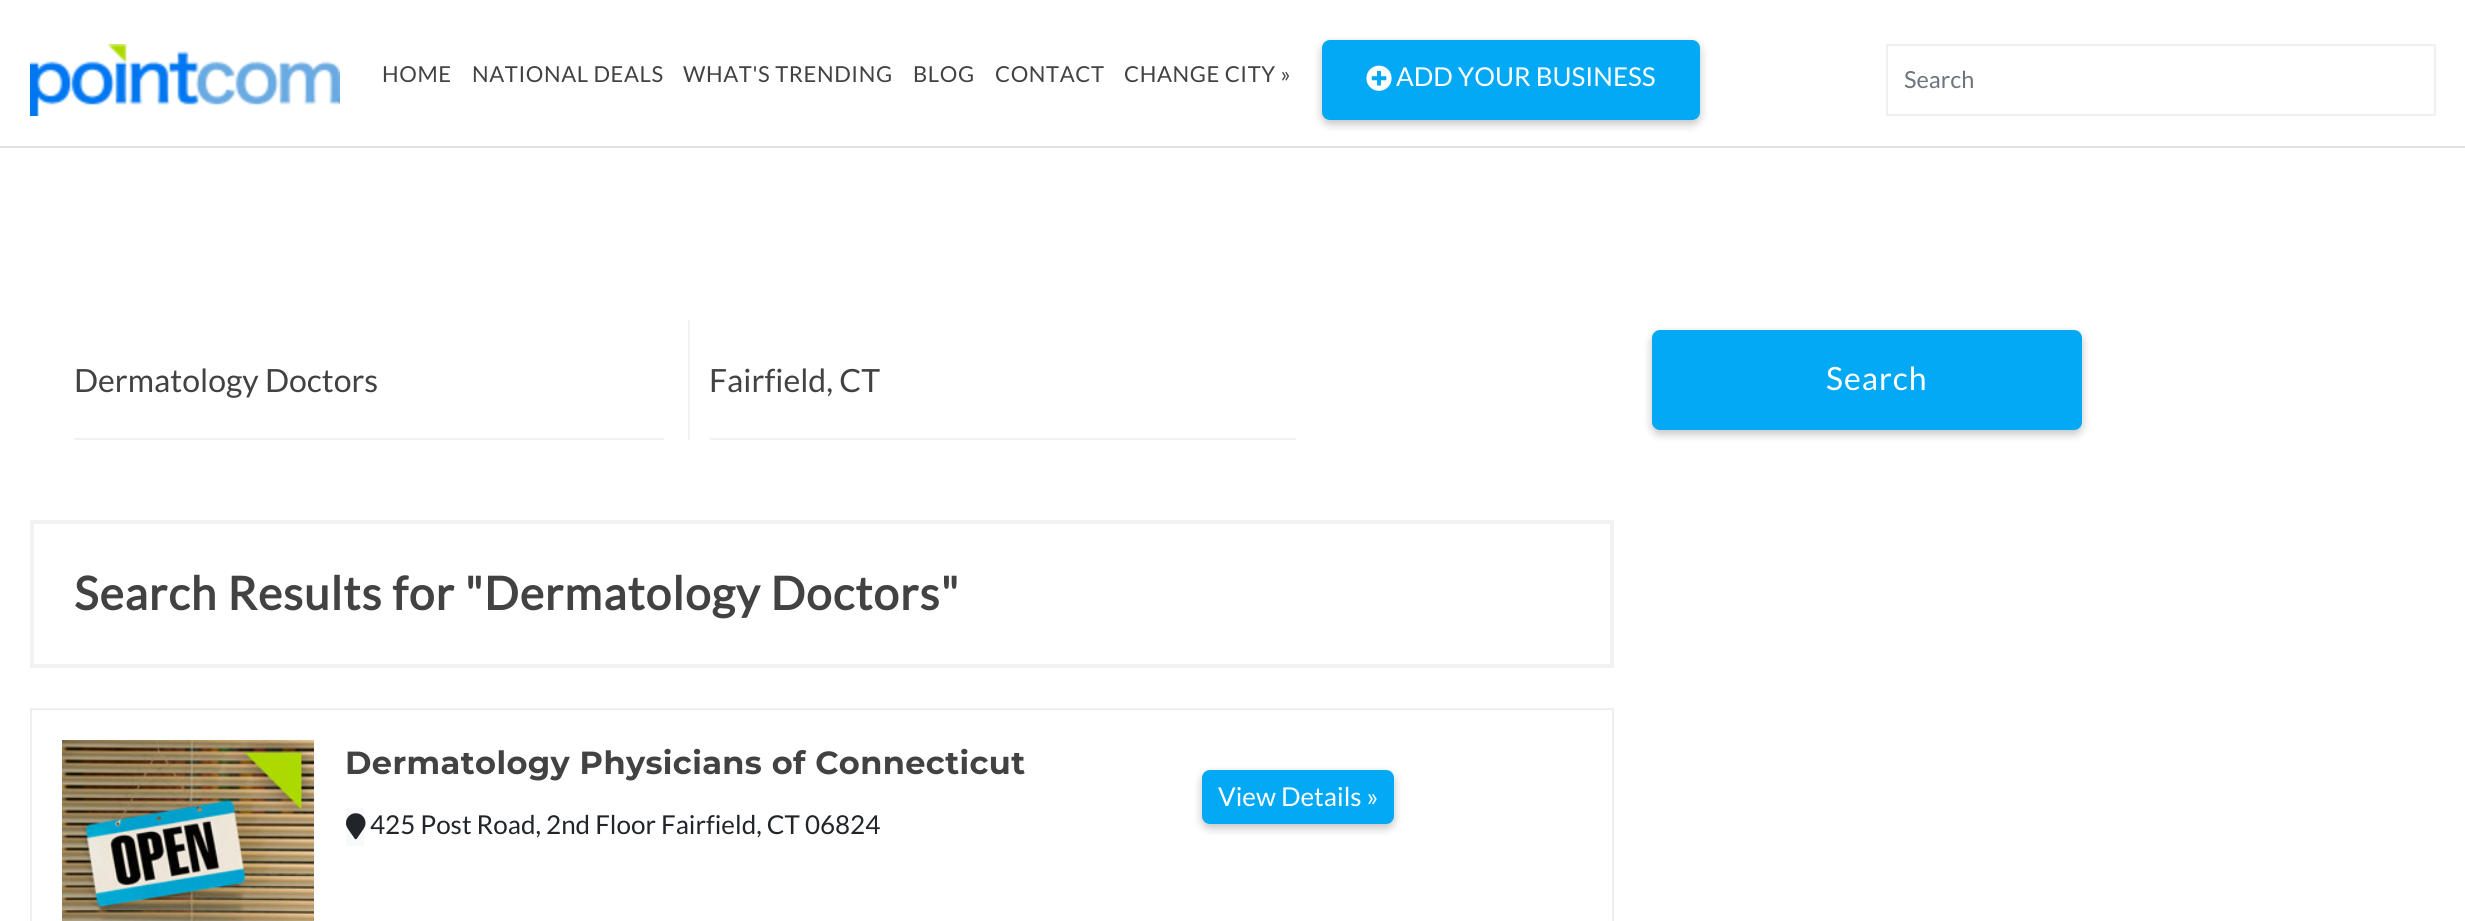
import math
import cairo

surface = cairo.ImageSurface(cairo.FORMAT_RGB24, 2465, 921)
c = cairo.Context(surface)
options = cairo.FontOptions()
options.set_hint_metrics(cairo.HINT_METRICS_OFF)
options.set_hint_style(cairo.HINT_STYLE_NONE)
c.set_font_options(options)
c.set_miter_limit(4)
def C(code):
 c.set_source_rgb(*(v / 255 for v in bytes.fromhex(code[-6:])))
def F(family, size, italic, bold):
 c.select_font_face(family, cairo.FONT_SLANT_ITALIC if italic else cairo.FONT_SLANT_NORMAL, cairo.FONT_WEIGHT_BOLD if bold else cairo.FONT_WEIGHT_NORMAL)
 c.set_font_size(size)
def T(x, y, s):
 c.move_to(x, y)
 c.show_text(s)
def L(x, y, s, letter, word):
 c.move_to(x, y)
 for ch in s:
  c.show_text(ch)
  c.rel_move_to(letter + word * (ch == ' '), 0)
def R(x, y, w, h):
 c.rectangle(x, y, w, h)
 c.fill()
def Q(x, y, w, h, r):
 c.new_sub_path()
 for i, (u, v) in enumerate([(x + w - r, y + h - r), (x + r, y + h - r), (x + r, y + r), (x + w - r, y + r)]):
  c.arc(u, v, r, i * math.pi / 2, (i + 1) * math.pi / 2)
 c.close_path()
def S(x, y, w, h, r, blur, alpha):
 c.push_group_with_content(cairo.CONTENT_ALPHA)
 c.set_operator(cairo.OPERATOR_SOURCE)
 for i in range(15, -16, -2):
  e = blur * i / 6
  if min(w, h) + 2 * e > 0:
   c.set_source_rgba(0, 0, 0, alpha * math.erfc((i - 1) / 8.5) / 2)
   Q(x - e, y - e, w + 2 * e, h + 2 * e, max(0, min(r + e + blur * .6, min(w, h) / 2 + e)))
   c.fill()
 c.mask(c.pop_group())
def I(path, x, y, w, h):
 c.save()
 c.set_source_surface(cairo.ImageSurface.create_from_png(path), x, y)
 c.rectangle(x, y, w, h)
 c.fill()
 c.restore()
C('ffffff')
c.paint()
C('dee2e6')
R(0,146,2465,2)
I('1.png',30,44,310,72)
F('Lato',22,0,0)
C('424242')
L(382,82,'HOME',.6,0)
L(472,82,'NATIONAL DEALS',.6,0)
L(683,82,'WHAT\'S TRENDING',.6,0)
L(913,82,'BLOG',.6,0)
L(995,82,'CONTACT',.6,0)
L(1124,82,'CHANGE CITY »',.6,0)
C('000000')
S(1322,44,378,80,8,5,.15)
S(1322,44,378,80,8,4,.1)
C('03a9f4')
Q(1322,40,378,80,8)
c.fill()
I('2.png',1366,65,26,26)
F('Lato',26,0,0)
C('ffffff')
T(1396,86,'ADD YOUR BUSINESS')
c.rectangle(1887,45,548,70)
C('f0f0f0')
c.stroke()
F('Lato',23.5,0,0)
C('6c757d')
T(1904,88,'Search')
C('f1f1f1')
R(74,438,590,2)
F('Lato',32,0,0)
C('424242')
T(74,392,'Dermatology Doctors')
C('f1f1f1')
R(688,320,2,120)
R(710,438,586,2)
C('424242')
T(709,392,'Fairfield, CT')
C('000000')
S(1652,334,430,100,8,5,.15)
S(1652,334,430,100,8,4,.1)
C('03a9f4')
Q(1652,330,430,100,8)
c.fill()
C('ffffff')
L(1826,390,'Search',1,0)
c.rectangle(32,522,1580,144)
C('f2f2f2')
c.set_line_width(4)
c.stroke()
F('Lato',46,0,1)
C('424242')
L(74,610,'Search Results for "Dermatology Doctors"',1,0)
c.rectangle(31,709,1582,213)
C('eeeeee')
c.set_line_width(2)
c.stroke()
I('3.png',62,740,252,181)
F('Montserrat',32,0,1)
C('424242')
L(345,774,'Dermatology Physicians of Connecticut',.4,0)
C('f8f9fa')
R(346,808,18,38)
I('4.png',346,813,20,27)
F('Lato',26,0,0)
C('212529')
T(370,834,'425 Post Road, 2nd Floor Fairfield, CT 06824')
C('000000')
S(1202,774,192,54,8,5,.15)
S(1202,774,192,54,8,4,.1)
C('03a9f4')
Q(1202,770,192,54,8)
c.fill()
C('ffffff')
T(1218,806,'View Details »')
surface.write_to_png('o.png')
